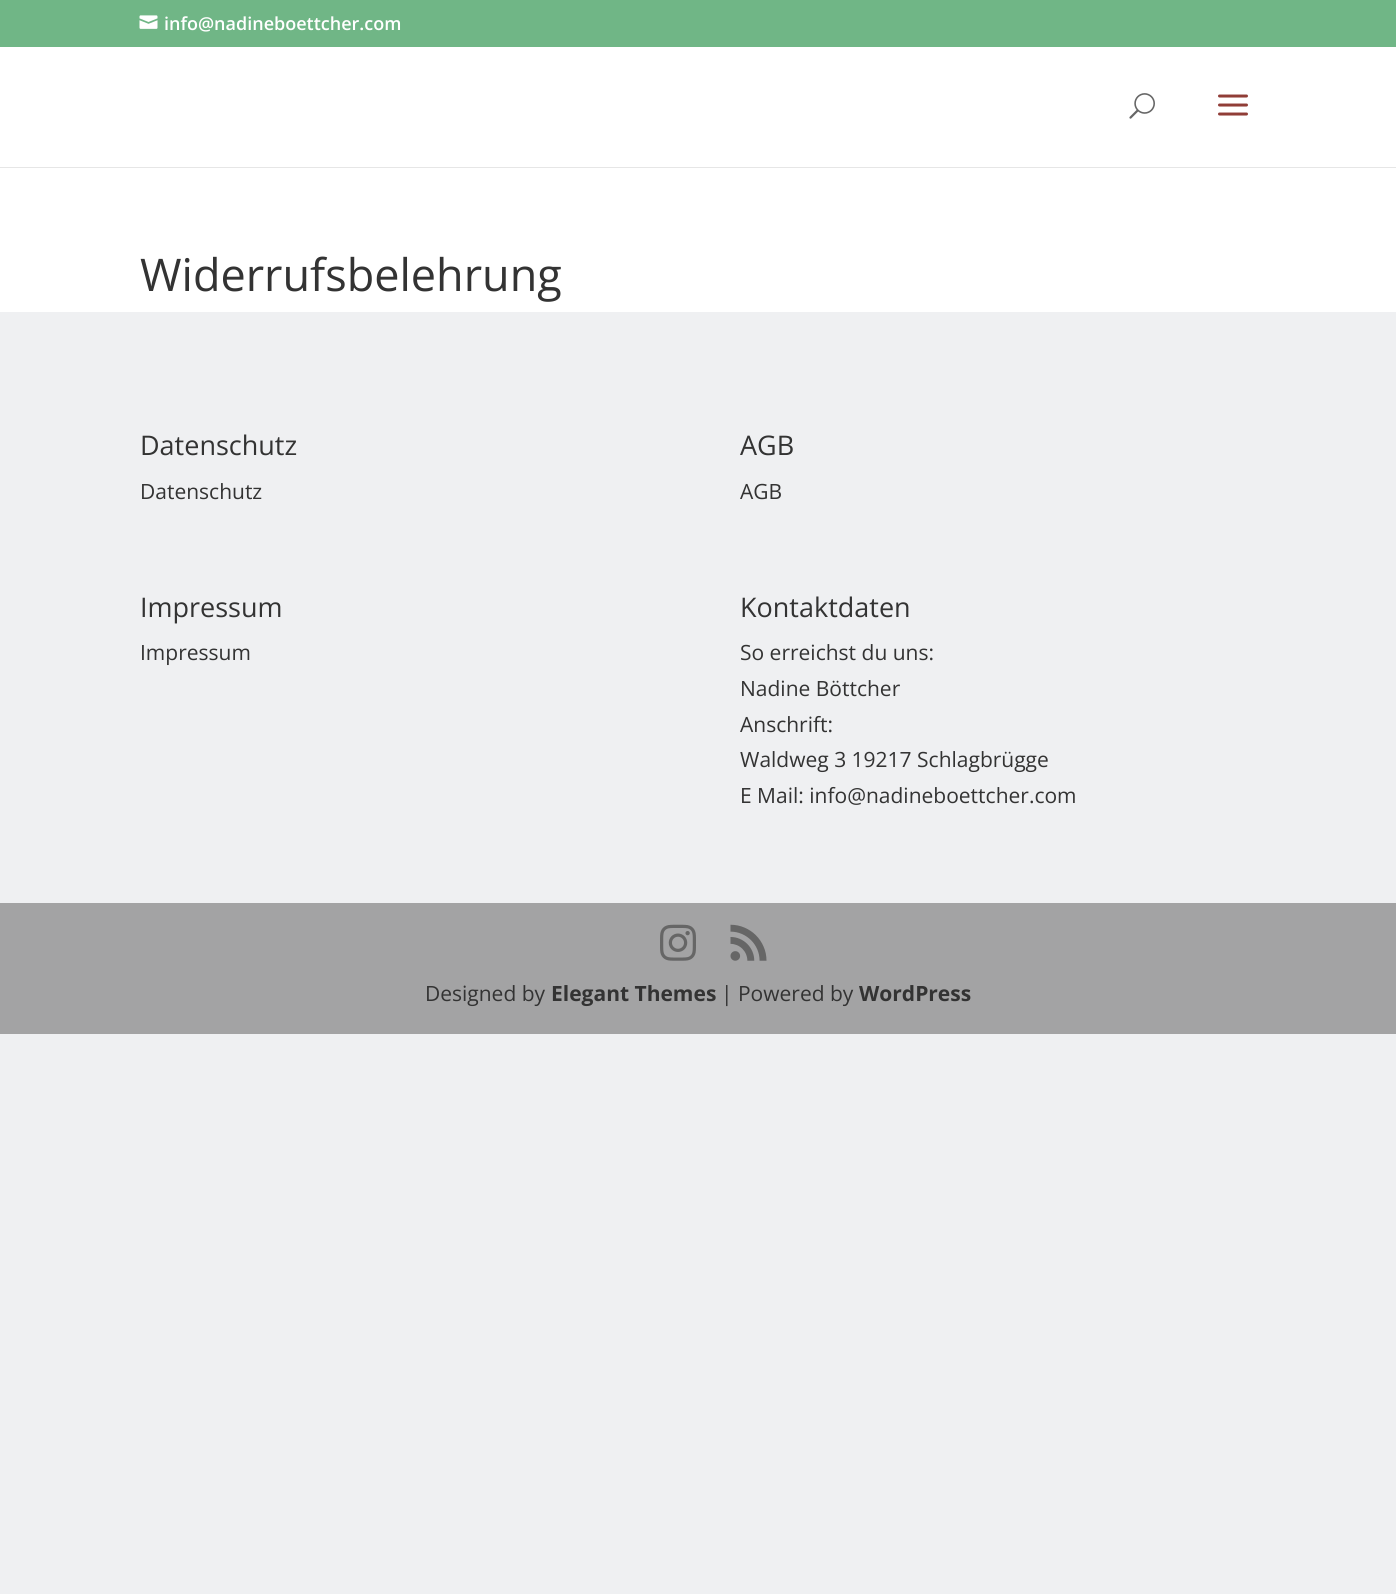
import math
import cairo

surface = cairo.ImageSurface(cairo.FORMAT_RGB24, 1396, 1594)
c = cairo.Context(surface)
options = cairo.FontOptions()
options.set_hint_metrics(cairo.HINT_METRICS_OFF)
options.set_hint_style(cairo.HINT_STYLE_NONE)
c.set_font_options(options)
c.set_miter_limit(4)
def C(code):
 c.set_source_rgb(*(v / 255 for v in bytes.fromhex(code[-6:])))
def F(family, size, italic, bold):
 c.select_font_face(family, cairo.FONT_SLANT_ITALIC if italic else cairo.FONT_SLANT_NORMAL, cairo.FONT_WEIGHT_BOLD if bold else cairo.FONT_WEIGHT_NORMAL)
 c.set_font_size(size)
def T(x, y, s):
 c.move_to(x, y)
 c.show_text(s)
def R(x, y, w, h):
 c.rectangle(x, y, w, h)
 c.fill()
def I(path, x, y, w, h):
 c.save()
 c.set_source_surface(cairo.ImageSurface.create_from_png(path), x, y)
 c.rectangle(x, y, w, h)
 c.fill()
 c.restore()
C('eff0f2')
c.paint()
C('70b686')
R(0,0,1396,47)
I('1.png',139,15,19,14)
F('Open Sans SemiBold',18,0,0)
C('ffffff')
T(164,30,'info@nadineboettcher.com')
C('e6e6e6')
c.new_path()
c.move_to(0,166)
c.line_to(0,168)
c.line_to(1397,168)
c.line_to(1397,48)
c.line_to(1396,48)
c.line_to(1396,166)
c.close_path()
c.fill()
C('ffffff')
R(0,47,1396,120)
I('2.png',1129,93,26,26)
I('3.png',1218,94,30,22)
R(0,168,1396,144)
F('Open Sans',45,0,0)
C('333333')
T(140,291,'Widerrufsbelehrung')
F('Open Sans',27,0,0)
T(140,455,'Datenschutz')
F('Open Sans',21,0,0)
T(140,499,'Datenschutz')
F('Open Sans',27,0,0)
T(740,455,'AGB')
F('Open Sans',21,0,0)
T(740,499,'AGB')
F('Open Sans',27,0,0)
T(140,617,'Impressum')
F('Open Sans',21,0,0)
T(140,660,'Impressum')
F('Open Sans',27,0,0)
T(740,617,'Kontaktdaten')
F('Open Sans',21,0,0)
T(740,660,'So erreichst du uns:')
T(740,696,'Nadine Böttcher')
T(740,732,'Anschrift:')
T(740,767,'Waldweg 3 19217 Schlagbrügge')
T(740,803,'E Mail: info@nadineboettcher.com')
C('a3a3a4')
R(0,903,1396,131)
I('4.png',660,924,36,37)
I('5.png',730,924,37,37)
C('333333')
T(425,1001,'Designed by')
F('Open Sans',21,0,1)
T(551,1001,'Elegant Themes')
F('Open Sans',21,0,0)
T(721,1001,'| Powered by')
F('Open Sans',21,0,1)
T(859,1001,'WordPress')
surface.write_to_png('o.png')
